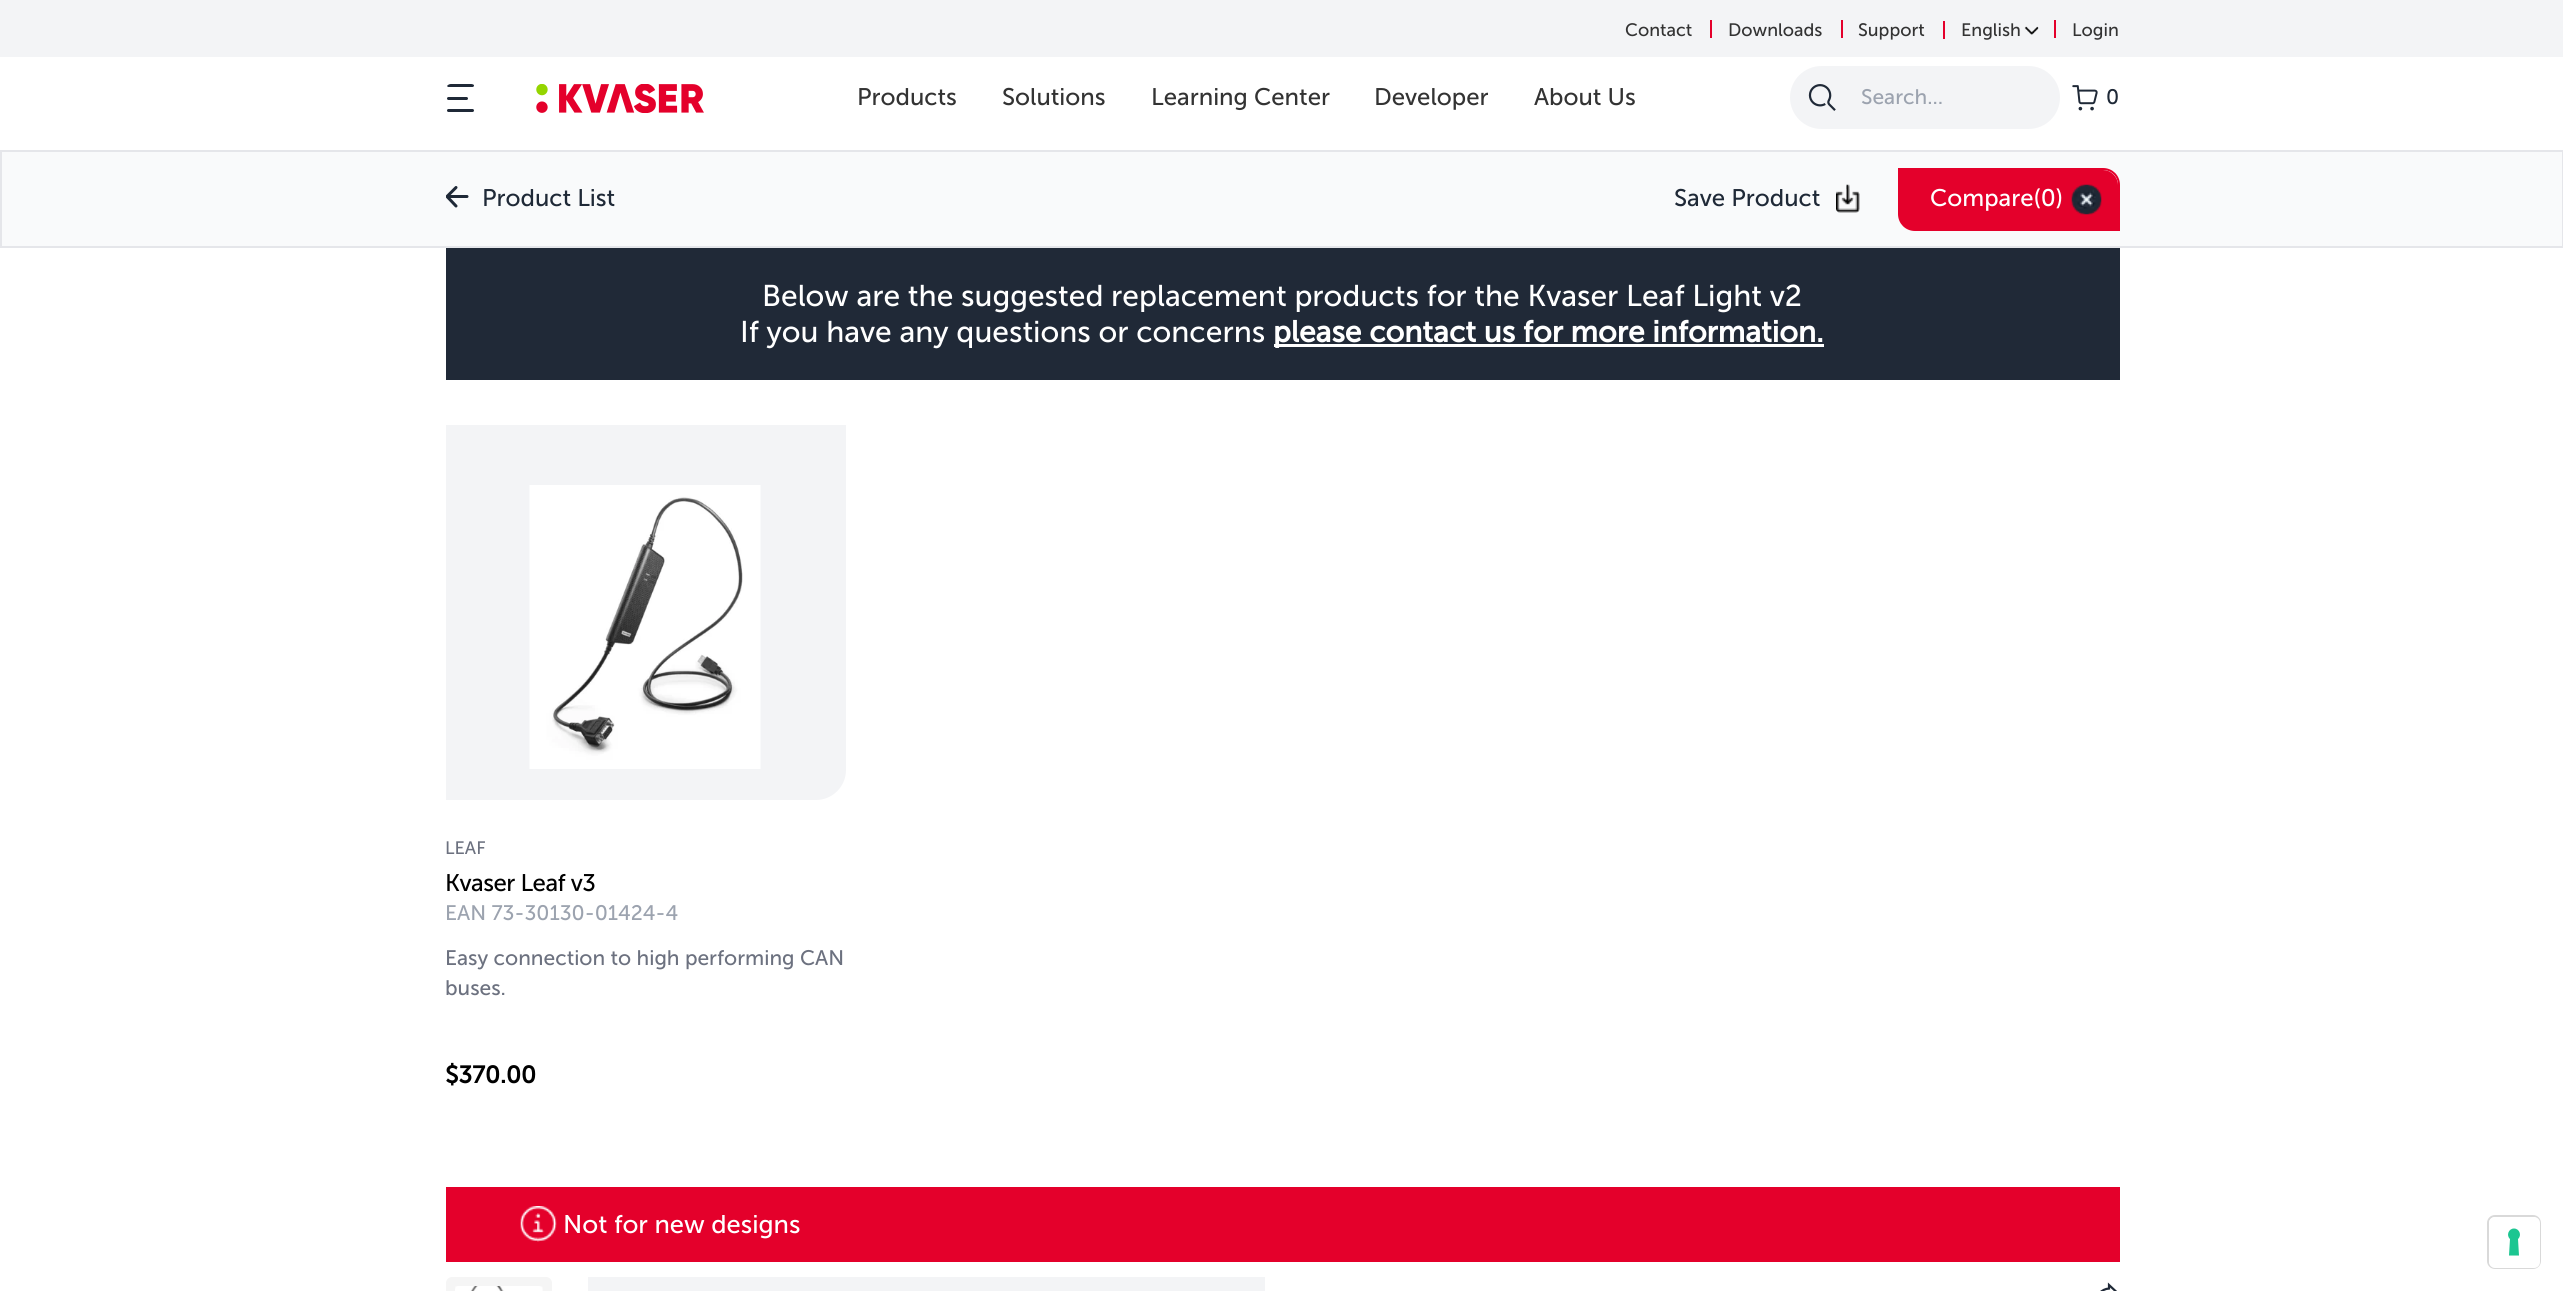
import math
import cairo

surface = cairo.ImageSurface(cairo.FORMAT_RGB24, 2563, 1291)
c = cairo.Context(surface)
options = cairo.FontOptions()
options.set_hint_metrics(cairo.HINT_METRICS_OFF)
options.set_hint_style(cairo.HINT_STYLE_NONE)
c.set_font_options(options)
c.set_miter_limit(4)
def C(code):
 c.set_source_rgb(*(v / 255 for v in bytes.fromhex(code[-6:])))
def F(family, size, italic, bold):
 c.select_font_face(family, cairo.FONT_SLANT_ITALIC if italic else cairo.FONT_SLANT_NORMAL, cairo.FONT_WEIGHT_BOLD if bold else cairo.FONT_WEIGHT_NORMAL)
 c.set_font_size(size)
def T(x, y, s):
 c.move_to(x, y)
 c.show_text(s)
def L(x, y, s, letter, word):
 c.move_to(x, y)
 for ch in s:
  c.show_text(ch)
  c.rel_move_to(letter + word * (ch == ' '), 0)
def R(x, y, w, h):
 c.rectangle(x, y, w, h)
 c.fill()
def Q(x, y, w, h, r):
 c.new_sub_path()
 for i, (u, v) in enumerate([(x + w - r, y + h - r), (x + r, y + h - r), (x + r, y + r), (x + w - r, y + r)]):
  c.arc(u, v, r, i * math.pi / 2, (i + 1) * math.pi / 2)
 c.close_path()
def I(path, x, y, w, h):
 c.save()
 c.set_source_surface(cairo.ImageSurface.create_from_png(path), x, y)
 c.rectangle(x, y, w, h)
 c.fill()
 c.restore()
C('ffffff')
c.paint()
C('f3f4f6')
R(0,0,2563,57)
F('Museo Sans',18,0,0)
C('333333')
T(1625,36,'Contact')
C('e4002b')
R(1710,20,2,18)
C('333333')
T(1728,36,'Downloads')
C('e4002b')
R(1841,20,2,18)
C('333333')
T(1858,36,'Support')
C('e4002b')
R(1943,21,2,18)
C('333333')
T(1961,36,'English')
I('1.png',2024,26,15,9)
C('e4002b')
R(2054,20,2,18)
C('333333')
T(2072,36,'Login')
C('1f2937')
Q(447,109,27,3,1.5)
c.fill()
c.save()
Q(446,84,30,29,5)
c.clip()
Q(447,84,27,3,1.5)
c.fill()
c.restore()
Q(447,97,21,3,1.5)
c.fill()
I('2.png',536,84,168,29)
F('Museo Sans',24,0,0)
C('333333')
T(857,105,'Products')
T(1002,105,'Solutions')
T(1151,105,'Learning Center')
T(1374,105,'Developer')
T(1534,105,'About Us')
C('f3f4f6')
Q(1790,66,270,63,31.5)
c.fill()
I('3.png',1808,84,28,27)
F('Museo Sans',21,0,0)
C('9ca3af')
T(1861,104,'Search...')
I('4.png',2072,85,26,26)
C('1f2937')
T(2106,104,'0')
C('f9fafb')
c.rectangle(1,151,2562,96)
c.fill_preserve()
C('e5e6ea')
c.stroke()
c.save()
c.rectangle(446,186,24,23)
c.clip()
c.new_path()
c.move_to(467,196.5)
c.line_to(447,196.5)
c.move_to(456,187.5)
c.line_to(447,196.5)
c.line_to(456,206)
C('1f2937')
c.set_line_width(3)
c.set_line_cap(cairo.LINE_CAP_ROUND)
c.set_line_join(cairo.LINE_JOIN_ROUND)
c.stroke()
c.restore()
F('Museo Sans',24,0,0)
C('1f2937')
T(482,206,'Product List')
T(1674,206,'Save Product')
I('5.png',1836,184,24,29)
C('e4002b')
c.new_path()
c.move_to(1900,171)
c.line_to(2103,171)
c.curve_to(2110.5,171,2117,177.5,2117,185)
c.line_to(2117,229)
c.line_to(1914,229)
c.curve_to(1906.5,229,1900,222.5,1900,215)
c.close_path()
c.fill_preserve()
c.stroke()
c.new_path()
c.move_to(1899,169)
c.line_to(2103,169)
c.curve_to(2112,169,2119,176,2119,185)
c.line_to(2119,230)
c.line_to(1915,230)
c.curve_to(1906,230,1899,223,1899,214)
c.close_path()
c.stroke()
C('ffffff')
T(1930,206,'Compare(0)')
I('6.png',2071,184,31,31)
C('202937')
R(446,248,1674,132)
F('Museo Sans',30,0,0)
C('ffffff')
T(762,306,'Below are the suggested replacement products for the Kvaser Leaf Light v2')
T(740,342,'If you have any questions or concerns')
R(1274,344,550,3)
F('Museo Sans',30,0,1)
T(1273,342,'please contact us for more information.')
C('f3f4f6')
c.new_path()
c.move_to(446,425)
c.line_to(846,425)
c.line_to(846,770)
c.curve_to(846,786.5,832.5,800,816,800)
c.line_to(446,800)
c.close_path()
c.fill()
I('7.png',529,485,232,284)
F('Museo Sans',18,0,0)
C('6c717f')
T(445,854,'LEAF')
F('Museo Sans',24,0,0)
C('000000')
L(445,891,'Kvaser Leaf v3',-.5,0)
F('Museo Sans',21,0,0)
C('9ca3af')
T(445,920,'EAN 73-30130-01424-4')
C('6c717f')
T(445,965,'Easy connection to high performing CAN')
T(445,995,'buses.')
F('Museo Sans',24,0,1)
C('000000')
T(445,1083,'$370.00')
C('e4002b')
R(446,1187,1674,75)
I('8.png',520,1206,37,36)
F('Museo Sans',25.5,0,0)
C('ffffff')
T(563,1233,'Not for new designs')
C('f5f5f5')
Q(446,1277,106,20,6)
c.fill()
I('9.png',455,1286,88,5)
C('f3f4f6')
R(588,1277,677,14)
c.new_path()
c.move_to(2116,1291.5)
c.line_to(2109,1285)
c.line_to(2109,1288.5)
c.curve_to(2101.5,1289,2095.5,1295.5,2095.5,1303)
c.curve_to(2098,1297.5,2103.5,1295,2109,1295)
c.line_to(2109,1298.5)
c.close_path()
C('1f2937')
c.set_line_width(2.2)
c.stroke()
Q(2488,1216,52,52,7)
C('d9d9d9')
c.set_line_width(2)
c.stroke()
C('ffffff')
Q(2489,1217,51,51,6)
c.fill()
C('1cc691')
c.set_fill_rule(cairo.FILL_RULE_EVEN_ODD)
c.new_path()
c.move_to(2514,1228.5)
c.curve_to(2519.5,1228.5,2522,1235.5,2518,1239)
c.line_to(2519,1255.5)
c.line_to(2509,1255.5)
c.line_to(2510,1239)
c.curve_to(2506,1235.5,2508.5,1228.5,2514,1228.5)
c.close_path()
c.fill()
surface.write_to_png('o.png')
